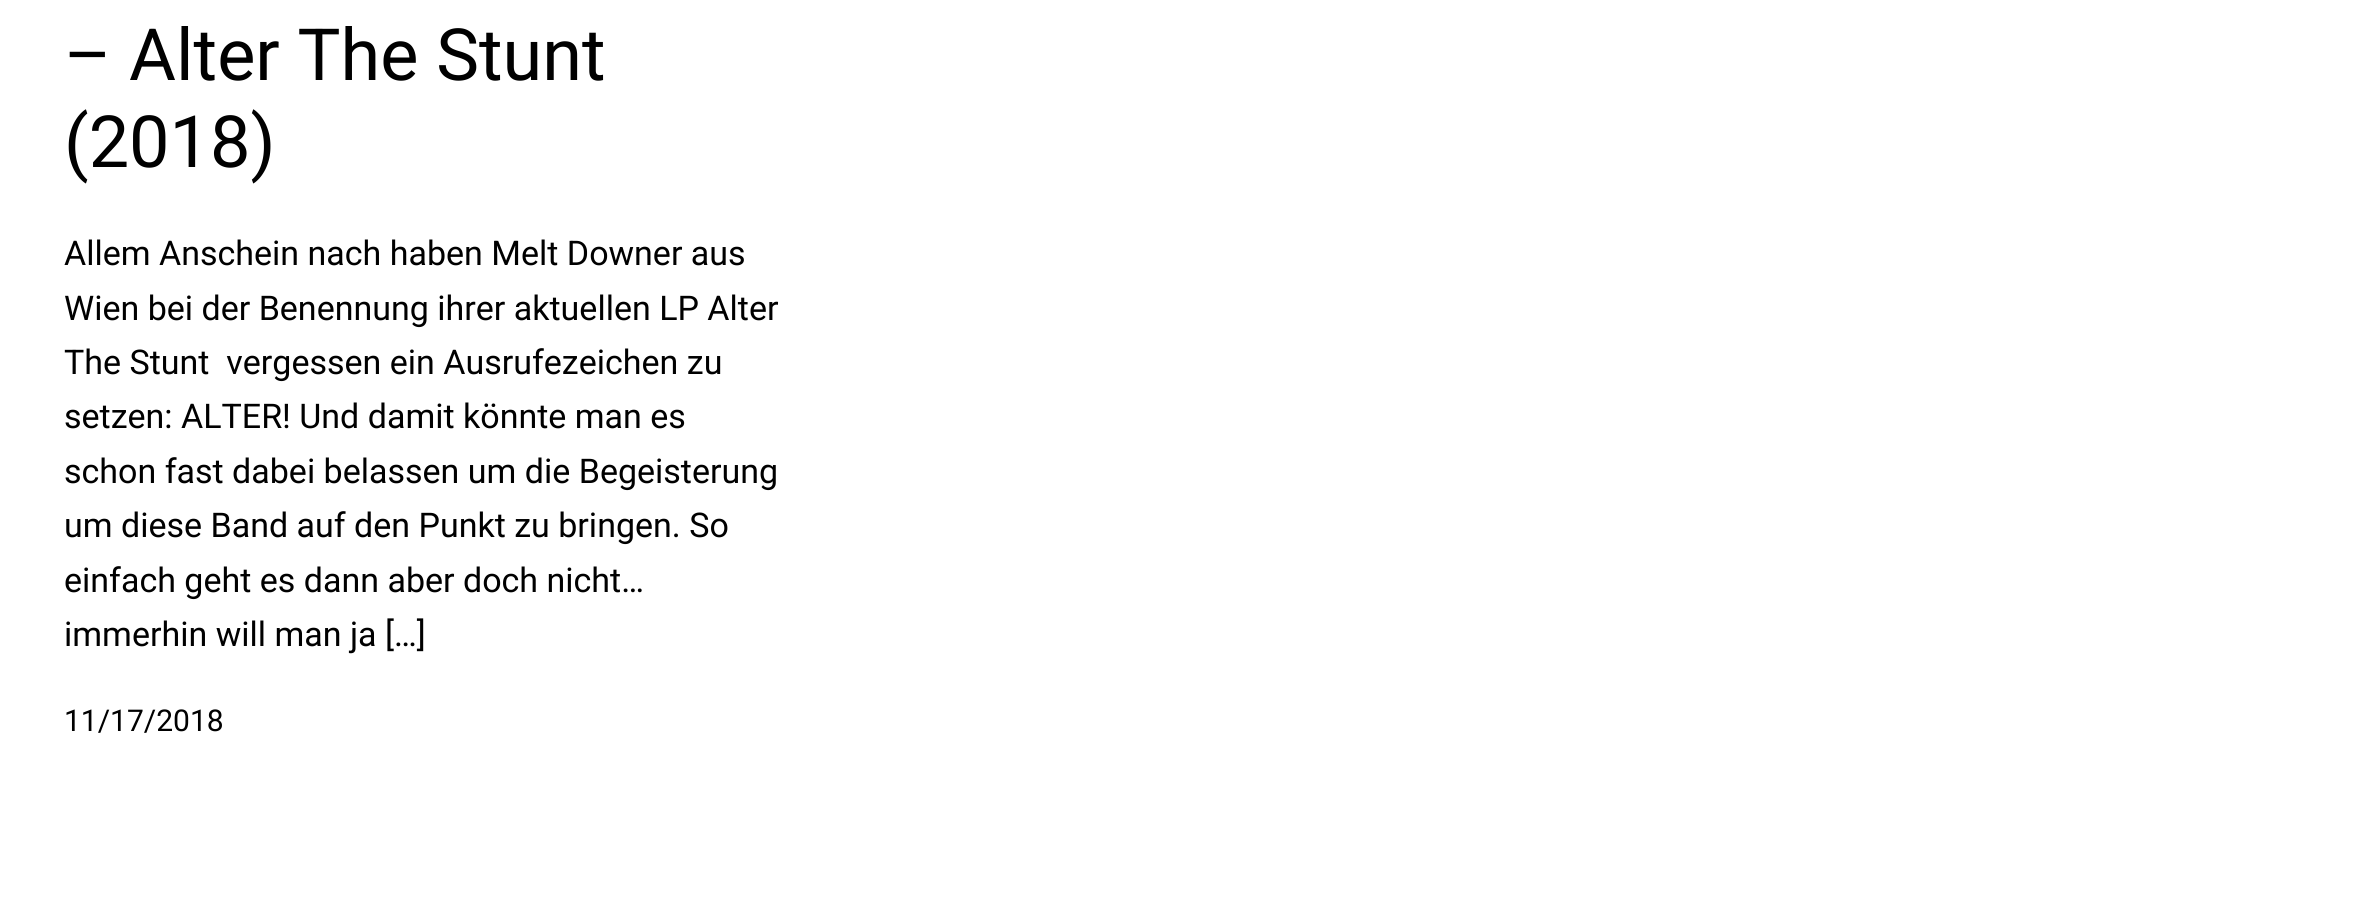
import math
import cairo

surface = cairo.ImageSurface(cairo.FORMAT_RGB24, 2377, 903)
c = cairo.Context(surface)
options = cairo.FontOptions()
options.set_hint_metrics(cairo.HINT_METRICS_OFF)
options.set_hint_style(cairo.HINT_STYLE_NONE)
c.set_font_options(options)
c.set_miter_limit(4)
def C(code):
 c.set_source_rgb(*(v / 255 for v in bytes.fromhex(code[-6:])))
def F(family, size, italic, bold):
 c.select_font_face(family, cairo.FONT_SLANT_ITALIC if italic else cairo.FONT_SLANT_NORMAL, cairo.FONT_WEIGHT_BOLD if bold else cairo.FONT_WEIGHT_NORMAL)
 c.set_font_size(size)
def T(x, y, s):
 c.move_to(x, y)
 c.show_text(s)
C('ffffff')
c.paint()
F('Roboto',72,0,0)
C('000000')
T(64,80,'– Alter The Stunt')
T(64,167,'(2018)')
F('Roboto',34,0,0)
T(64,265,'Allem Anschein nach haben Melt Downer aus')
T(64,320,'Wien bei der Benennung ihrer aktuellen LP Alter')
T(64,374,'The Stunt  vergessen ein Ausrufezeichen zu')
T(64,428,'setzen: ALTER! Und damit könnte man es')
T(64,483,'schon fast dabei belassen um die Begeisterung')
T(64,537,'um diese Band auf den Punkt zu bringen. So')
T(64,592,'einfach geht es dann aber doch nicht…')
T(64,646,'immerhin will man ja […]')
F('Roboto',30,0,0)
T(64,731,'11/17/2018')
surface.write_to_png('o.png')
